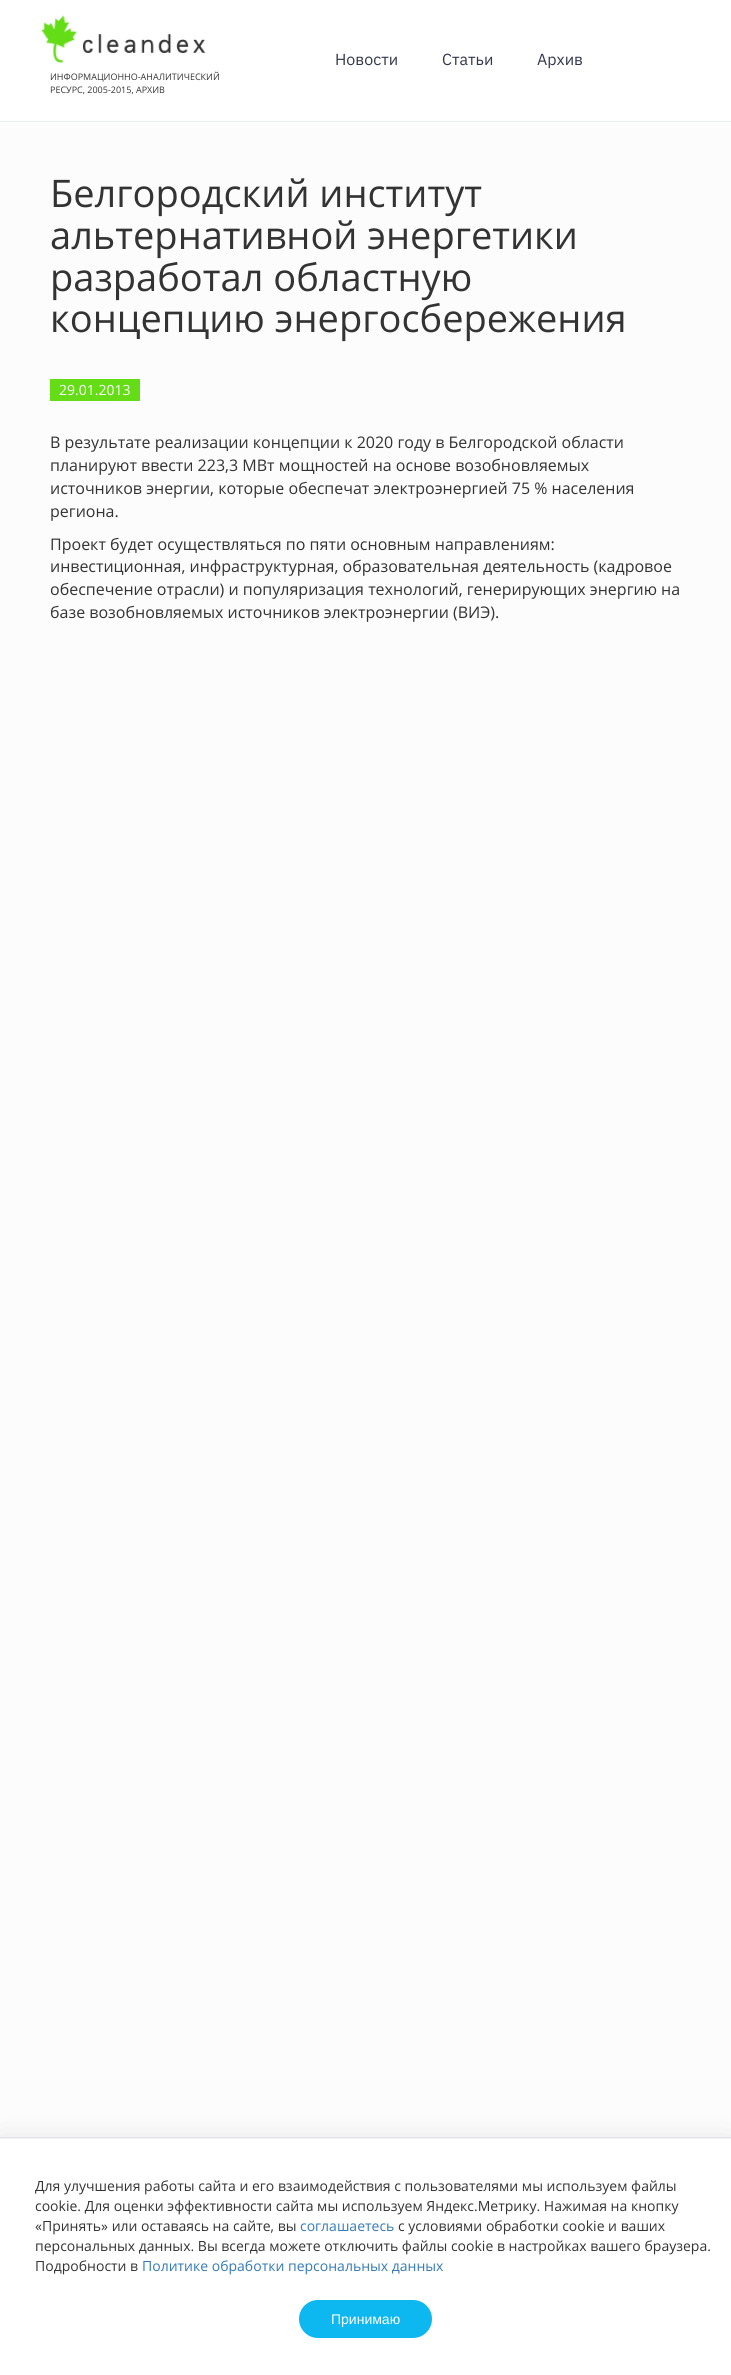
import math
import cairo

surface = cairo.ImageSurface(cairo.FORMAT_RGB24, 731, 2375)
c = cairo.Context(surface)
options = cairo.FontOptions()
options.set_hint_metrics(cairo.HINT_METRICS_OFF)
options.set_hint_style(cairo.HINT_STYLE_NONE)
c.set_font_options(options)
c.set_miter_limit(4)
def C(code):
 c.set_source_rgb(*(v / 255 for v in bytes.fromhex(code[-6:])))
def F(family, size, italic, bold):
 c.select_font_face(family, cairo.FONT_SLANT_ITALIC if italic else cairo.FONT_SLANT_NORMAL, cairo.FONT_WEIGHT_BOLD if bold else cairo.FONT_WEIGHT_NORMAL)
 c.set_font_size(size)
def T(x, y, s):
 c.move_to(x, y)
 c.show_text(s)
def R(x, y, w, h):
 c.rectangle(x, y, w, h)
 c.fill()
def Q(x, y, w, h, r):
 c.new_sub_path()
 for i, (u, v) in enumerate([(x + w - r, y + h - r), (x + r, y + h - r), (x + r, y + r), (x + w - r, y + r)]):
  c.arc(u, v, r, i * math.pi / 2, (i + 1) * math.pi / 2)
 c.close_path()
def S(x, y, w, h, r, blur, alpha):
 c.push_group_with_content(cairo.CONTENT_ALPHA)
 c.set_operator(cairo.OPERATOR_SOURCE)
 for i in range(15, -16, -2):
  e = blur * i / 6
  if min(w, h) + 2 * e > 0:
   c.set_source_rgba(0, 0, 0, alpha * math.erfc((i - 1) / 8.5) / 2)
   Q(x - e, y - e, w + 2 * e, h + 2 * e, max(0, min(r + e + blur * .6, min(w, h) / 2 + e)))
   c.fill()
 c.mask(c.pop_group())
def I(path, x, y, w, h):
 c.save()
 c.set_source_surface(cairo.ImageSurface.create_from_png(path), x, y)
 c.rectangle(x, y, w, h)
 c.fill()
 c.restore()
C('fcfcfc')
c.paint()
C('ffffff')
R(0,0,731,121)
C('edf0f4')
R(0,121,731,1)
F('IBM Plex Sans',16,0,0)
C('33374c')
T(335,65,'Новости')
T(442,65,'Статьи')
T(537,65,'Архив')
I('1.png',41,15,165,48)
F('Open Sans',9,0,0)
C('333333')
T(50,80,'ИНФОРМАЦИОННО-АНАЛИТИЧЕСКИЙ')
T(50,93,'РЕСУРС, 2005-2015, АРХИВ')
F('Open Sans',38,0,0)
T(50,207,'Белгородский институт')
T(50,249,'альтернативной энергетики')
T(50,291,'разработал областную')
T(50,332,'концепцию энергосбережения')
C('64dd17')
R(50,379,90,22)
F('Open Sans',14,0,0)
C('ffffff')
T(59,395,'29.01.2013')
F('Open Sans',16,0,0)
C('333333')
T(50,448,'В результате реализации концепции к 2020 году в Белгородской области')
T(50,471,'планируют ввести 223,3 МВт мощностей на основе возобновляемых')
T(50,494,'источников энергии, которые обеспечат электроэнергией 75 % населения')
T(50,517,'региона.')
T(50,550,'Проект будет осуществляться по пяти основным направлениям:')
T(50,572,'инвестиционная, инфраструктурная, образовательная деятельность (кадровое')
T(50,595,'обеспечение отрасли) и популяризация технологий, генерирующих энергию на')
T(50,618,'базе возобновляемых источников электроэнергии (ВИЭ).')
c.rectangle(-.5,2137.5,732,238)
C('ededed')
c.set_line_width(1)
c.stroke()
C('000000')
S(0,2148,731,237,0,18,.16)
C('ffffff')
R(0,2139,731,236)
C('f1f3f6')
R(0,2138,731,1)
F('Open Sans',14,0,0)
C('333333')
T(35,2191,'Для улучшения работы сайта и его взаимодействия с пользователями мы используем файлы')
T(35,2211,'cookie. Для оценки эффективности сайта мы используем Яндекс.Метрику. Нажимая на кнопку')
T(35,2231,'«Принять» или оставаясь на сайте, вы')
C('337ab7')
T(300,2231,'соглашаетесь')
C('333333')
T(398,2231,'с условиями обработки cookie и ваших')
T(35,2251,'персональных данных. Вы всегда можете отключить файлы cookie в настройках вашего браузера.')
T(35,2271,'Подробности в')
C('337ab7')
T(142,2271,'Политике обработки персональных данных')
C('0db8f1')
Q(300,2301,131,36,18)
c.fill_preserve()
c.set_line_width(2)
c.stroke()
F('Liberation Sans',14,0,0)
C('ffffff')
T(331,2324,'Принимаю')
surface.write_to_png('o.png')
